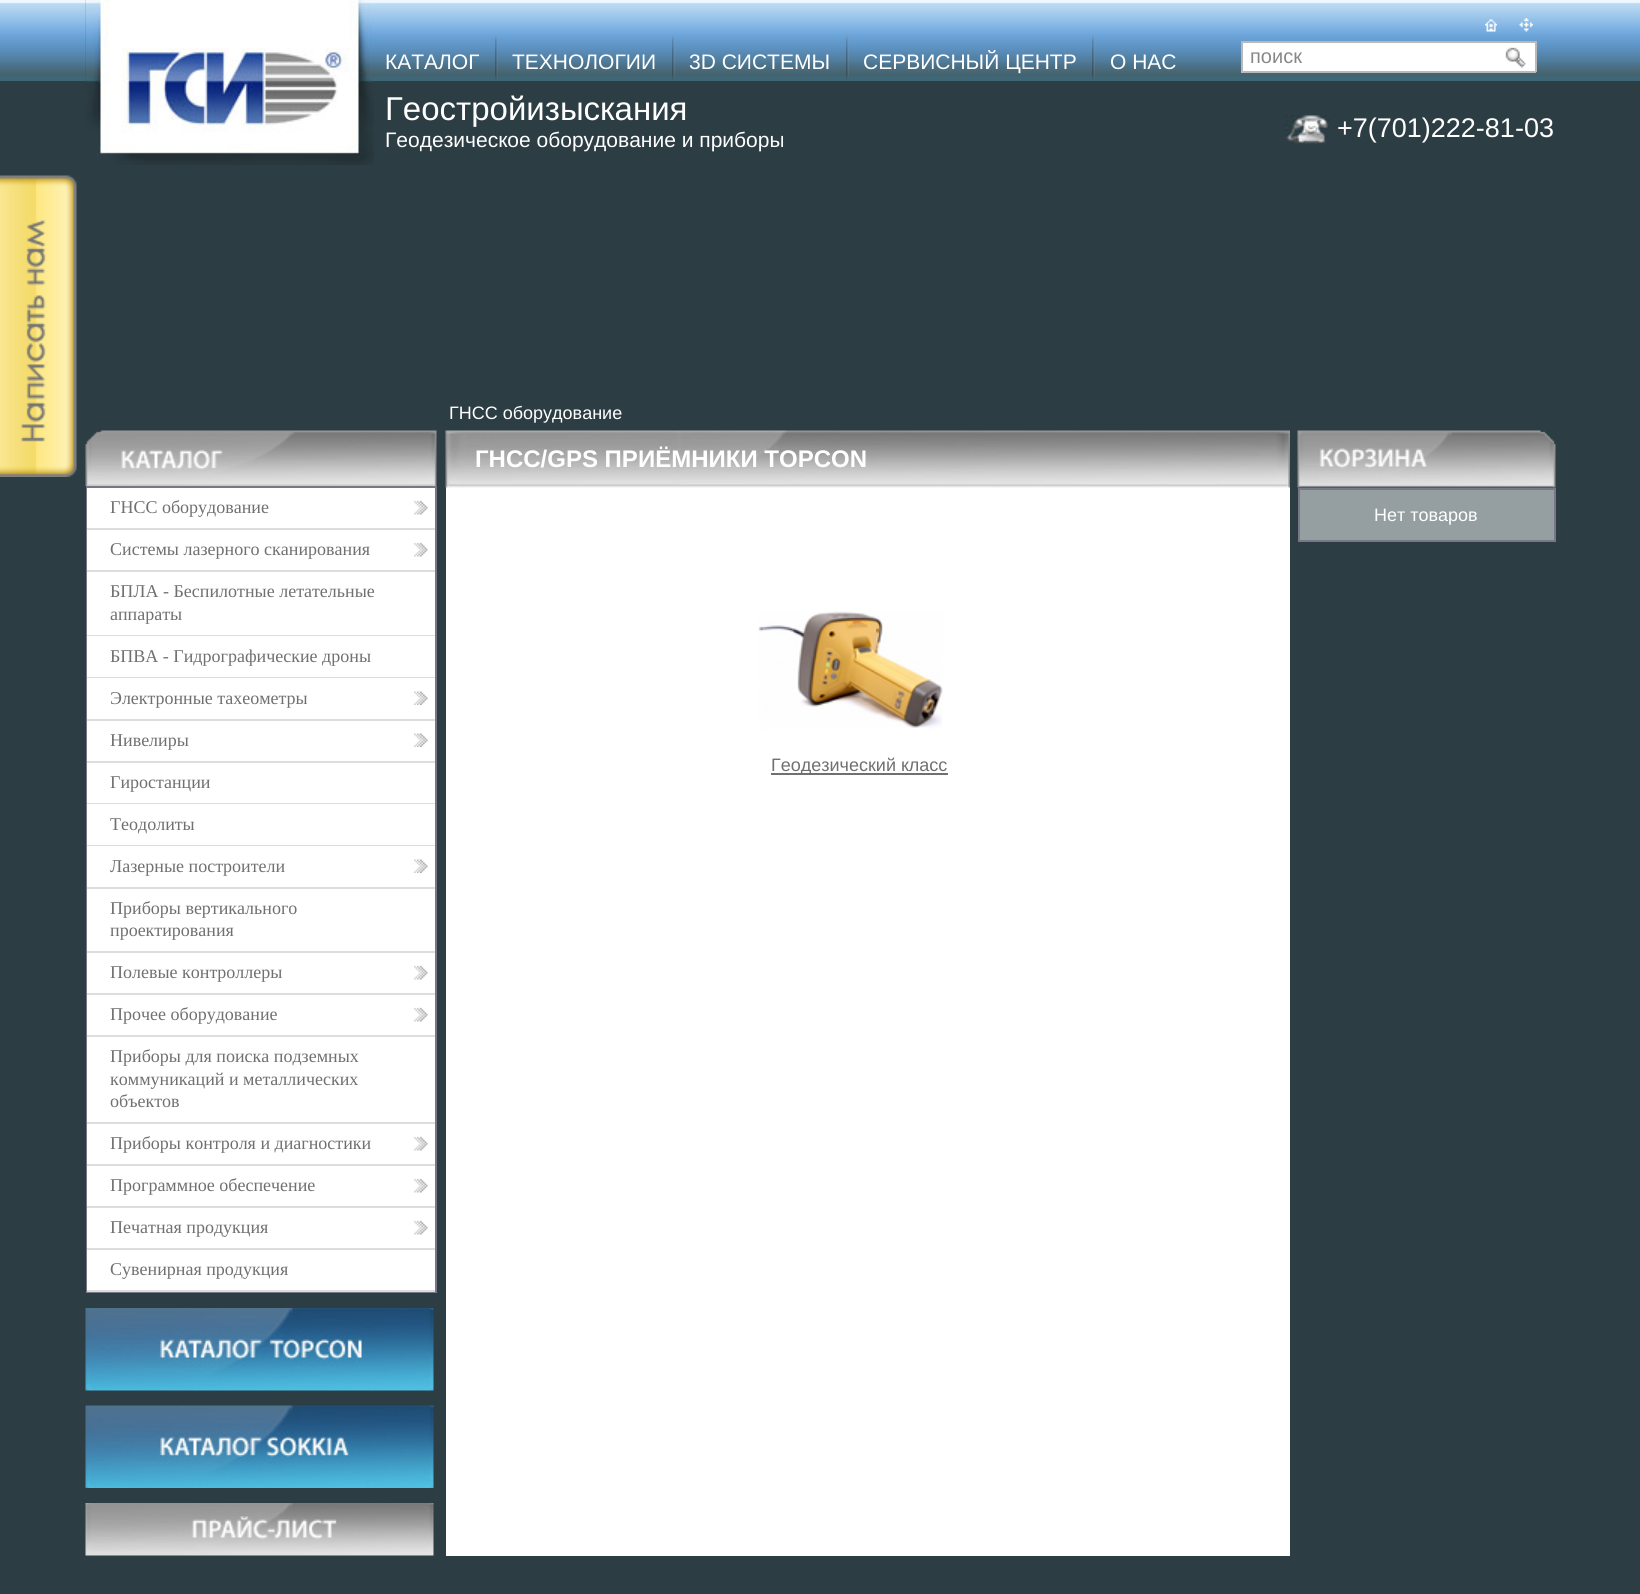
import math
import cairo

surface = cairo.ImageSurface(cairo.FORMAT_RGB24, 1640, 1594)
c = cairo.Context(surface)
options = cairo.FontOptions()
options.set_hint_metrics(cairo.HINT_METRICS_OFF)
options.set_hint_style(cairo.HINT_STYLE_NONE)
c.set_font_options(options)
c.set_miter_limit(4)
def C(code):
 c.set_source_rgb(*(v / 255 for v in bytes.fromhex(code[-6:])))
def F(family, size, italic, bold):
 c.select_font_face(family, cairo.FONT_SLANT_ITALIC if italic else cairo.FONT_SLANT_NORMAL, cairo.FONT_WEIGHT_BOLD if bold else cairo.FONT_WEIGHT_NORMAL)
 c.set_font_size(size)
def T(x, y, s):
 c.move_to(x, y)
 c.show_text(s)
def R(x, y, w, h):
 c.rectangle(x, y, w, h)
 c.fill()
def I(path, x, y, w, h):
 c.save()
 c.set_source_surface(cairo.ImageSurface.create_from_png(path), x, y)
 c.rectangle(x, y, w, h)
 c.fill()
 c.restore()
C('2c3d44')
c.paint()
I('1.png',0,0,86,81)
I('2.png',1557,0,83,81)
I('3.png',85,0,1472,81)
I('4.png',85,0,289,165)
I('5.png',1485,19,12,13)
I('6.png',1519,18,14,14)
F('Liberation Sans',21,0,0)
C('ffffff')
T(385,69,'КАТАЛОГ')
I('7.png',495,35,3,45)
T(512,69,'ТЕХНОЛОГИИ')
I('8.png',672,35,3,45)
T(689,69,'3D СИСТЕМЫ')
I('8.png',846,35,3,45)
T(863,69,'СЕРВИСНЫЙ ЦЕНТР')
I('7.png',1092,35,3,45)
T(1110,69,'О НАС')
R(1243,43,292,28)
C('bab9ba')
R(1241,41,295,2)
R(1535,41,2,31)
R(1241,71,295,2)
R(1241,41,2,31)
F('Liberation Sans',20,0,0)
C('888888')
T(1250,63,'поиск')
I('9.png',1505,47,21,21)
F('Liberation Sans',33,0,0)
C('ffffff')
T(385,120,'Геостройизыскания')
F('Liberation Sans',21,0,0)
T(385,147,'Геодезическое оборудование и приборы')
I('10.png',1285,115,44,29)
F('Liberation Sans',27,0,0)
T(1337,137,'+7(701)222-81-03')
I('11.png',0,175,77,302)
F('Liberation Sans',18,0,0)
T(449,419,'ГНСС оборудование')
I('12.png',85,430,352,56)
c.rectangle(87,487,349,805)
C('777788')
c.stroke()
C('ffffff')
R(87,488,348,40)
C('dddddd')
R(87,528,348,2)
F('Liberation Serif',18,0,0)
C('707070')
T(110,513,'ГНСС оборудование')
I('13.png',414,500,14,15)
C('ffffff')
R(87,530,348,40)
C('dddddd')
R(87,570,348,2)
C('707070')
T(110,555,'Системы лазерного сканирования')
I('13.png',414,542,14,15)
C('ffffff')
R(87,572,348,63)
C('dddddd')
R(87,635,348,1)
C('707070')
T(110,597,'БПЛА - Беспилотные летательные')
T(110,620,'аппараты')
C('ffffff')
R(87,636,348,41)
C('dddddd')
R(87,677,348,1)
C('707070')
T(110,662,'БПВА - Гидрографические дроны')
C('ffffff')
R(87,678,348,41)
C('dddddd')
R(87,719,348,2)
C('707070')
T(110,704,'Электронные тахеометры')
I('14.png',414,691,14,14)
C('ffffff')
R(87,721,348,40)
C('dddddd')
R(87,761,348,2)
C('707070')
T(110,746,'Нивелиры')
I('14.png',414,733,14,14)
C('ffffff')
R(87,763,348,40)
C('dddddd')
R(87,803,348,1)
C('707070')
T(110,788,'Гиростанции')
C('ffffff')
R(87,804,348,41)
C('dddddd')
R(87,845,348,1)
C('707070')
T(110,830,'Теодолиты')
C('ffffff')
R(87,846,348,41)
C('dddddd')
R(87,887,348,2)
C('707070')
T(110,872,'Лазерные построители')
I('14.png',414,859,14,14)
C('ffffff')
R(87,889,348,62)
C('dddddd')
R(87,951,348,2)
C('707070')
T(110,914,'Приборы вертикального')
T(110,936,'проектирования')
C('ffffff')
R(87,953,348,40)
C('dddddd')
R(87,993,348,2)
C('707070')
T(110,978,'Полевые контроллеры')
I('13.png',414,965,14,15)
C('ffffff')
R(87,995,348,40)
C('dddddd')
R(87,1035,348,2)
C('707070')
T(110,1020,'Прочее оборудование')
I('13.png',414,1007,14,15)
C('ffffff')
R(87,1037,348,85)
C('dddddd')
R(87,1122,348,2)
C('707070')
T(110,1062,'Приборы для поиска подземных')
T(110,1085,'коммуникаций и металлических')
T(110,1107,'объектов')
C('ffffff')
R(87,1124,348,40)
C('dddddd')
R(87,1164,348,2)
C('707070')
T(110,1149,'Приборы контроля и диагностики')
I('13.png',414,1136,14,15)
C('ffffff')
R(87,1166,348,40)
C('dddddd')
R(87,1206,348,2)
C('707070')
T(110,1191,'Программное обеспечение')
I('13.png',414,1178,14,15)
C('ffffff')
R(87,1208,348,40)
C('dddddd')
R(87,1248,348,2)
C('707070')
T(110,1233,'Печатная продукция')
I('13.png',414,1220,14,15)
C('ffffff')
R(87,1250,348,40)
C('dddddd')
R(87,1290,348,2)
C('707070')
T(110,1275,'Сувенирная продукция')
I('15.png',85,1308,349,83)
I('16.png',85,1405,349,83)
I('17.png',85,1503,349,53)
C('ffffff')
R(446,487,844,1069)
I('18.png',445,430,845,58)
F('Liberation Sans',24,0,1)
T(475,467,'ГНСС/GPS ПРИЁМНИКИ TOPCON')
I('19.png',758,611,185,118)
C('707070')
R(771,773,177,2)
F('Liberation Sans',18,0,0)
T(771,771,'Геодезический класс')
I('20.png',1297,430,259,58)
C('959ea1')
R(1300,490,254,50)
C('777788')
R(1298,488,258,2)
R(1554,488,2,54)
R(1298,540,258,2)
R(1298,488,2,54)
C('ffffff')
T(1374,521,'Нет товаров')
surface.write_to_png('o.png')
